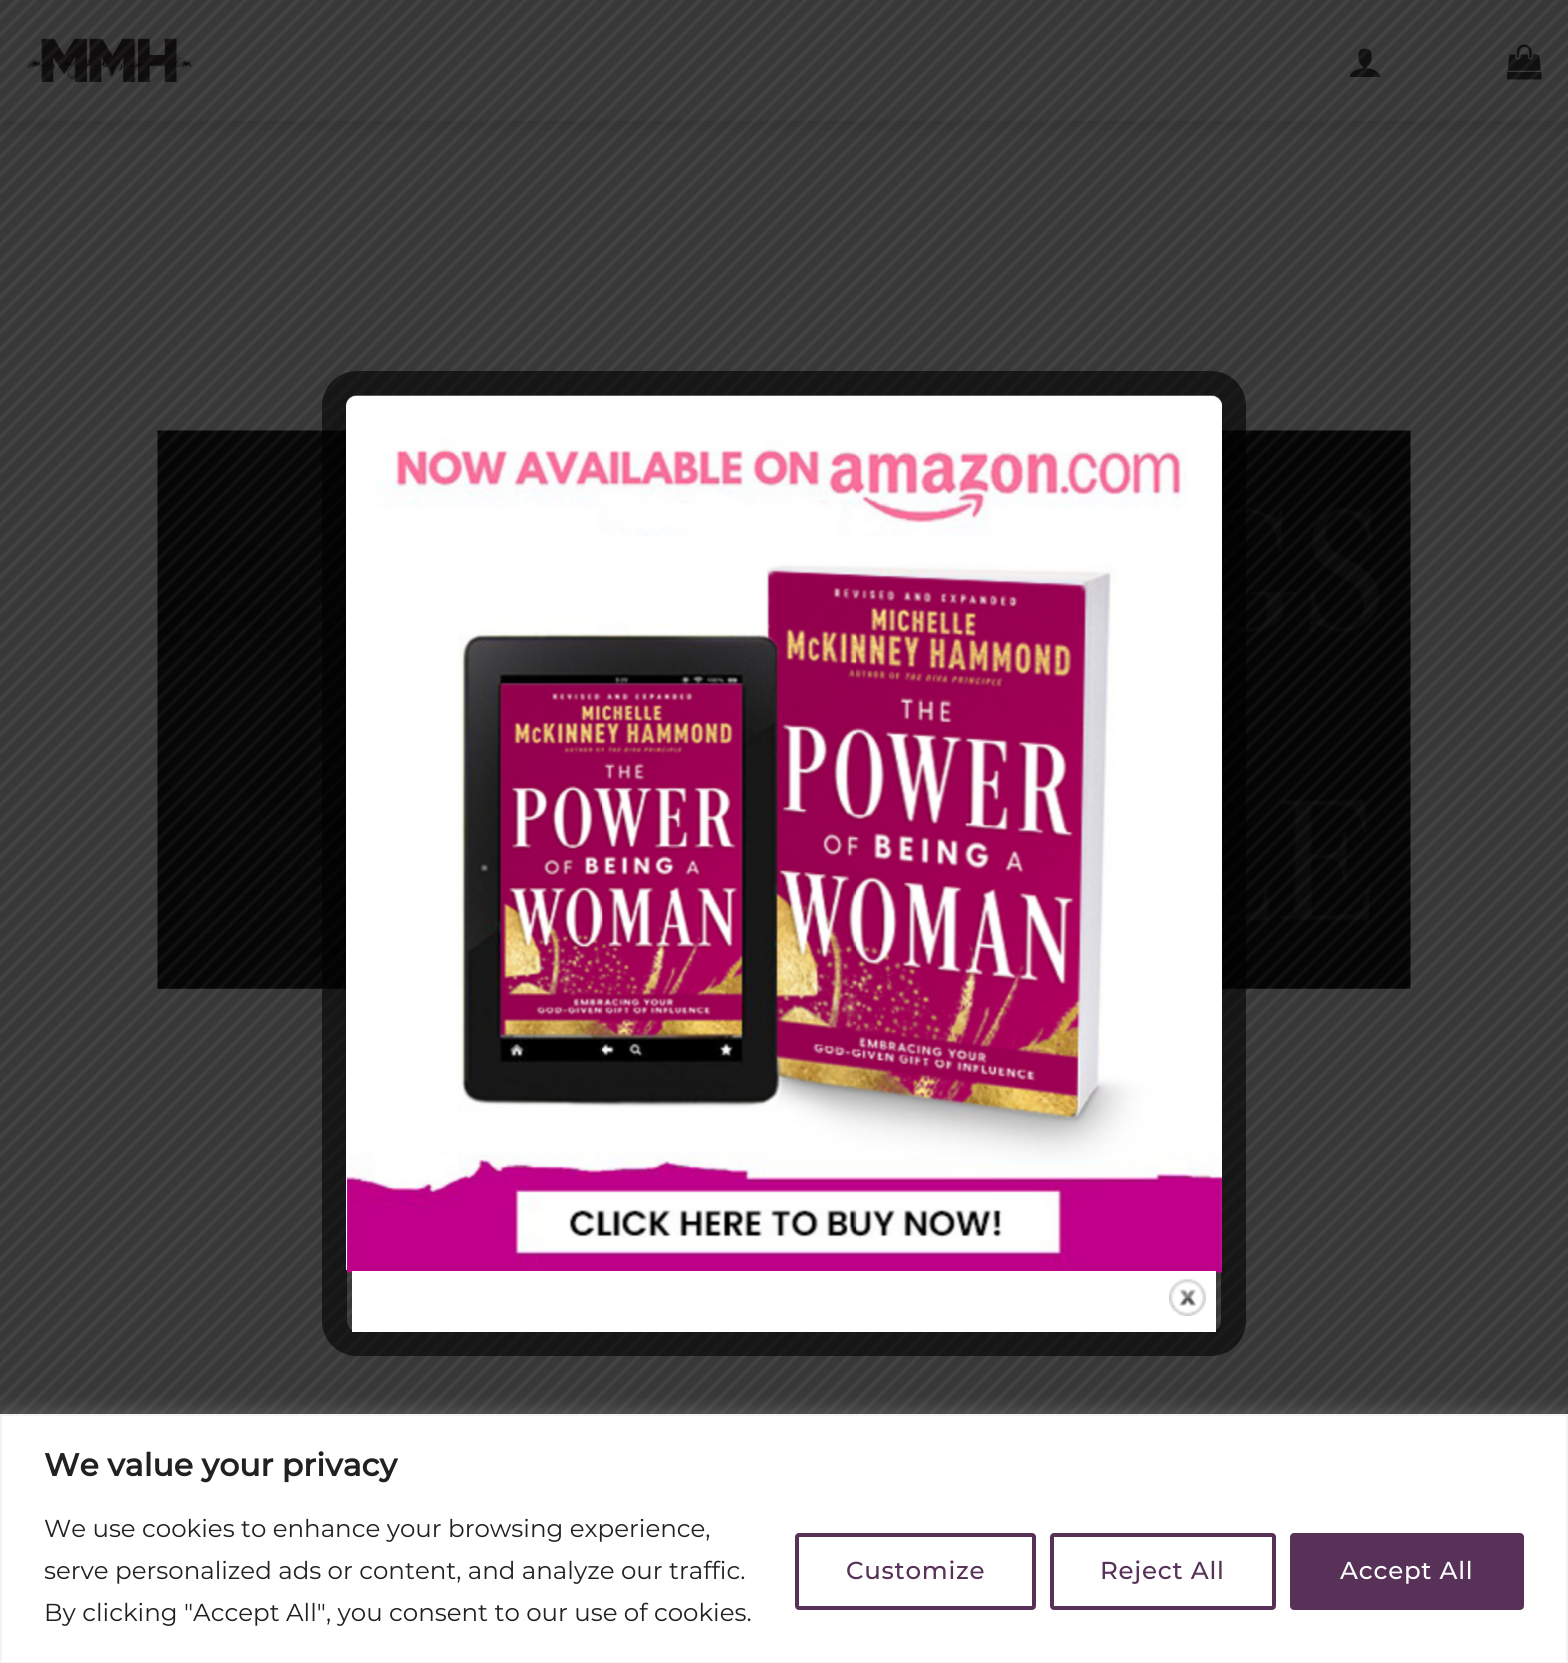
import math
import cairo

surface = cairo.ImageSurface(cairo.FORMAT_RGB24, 1568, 1663)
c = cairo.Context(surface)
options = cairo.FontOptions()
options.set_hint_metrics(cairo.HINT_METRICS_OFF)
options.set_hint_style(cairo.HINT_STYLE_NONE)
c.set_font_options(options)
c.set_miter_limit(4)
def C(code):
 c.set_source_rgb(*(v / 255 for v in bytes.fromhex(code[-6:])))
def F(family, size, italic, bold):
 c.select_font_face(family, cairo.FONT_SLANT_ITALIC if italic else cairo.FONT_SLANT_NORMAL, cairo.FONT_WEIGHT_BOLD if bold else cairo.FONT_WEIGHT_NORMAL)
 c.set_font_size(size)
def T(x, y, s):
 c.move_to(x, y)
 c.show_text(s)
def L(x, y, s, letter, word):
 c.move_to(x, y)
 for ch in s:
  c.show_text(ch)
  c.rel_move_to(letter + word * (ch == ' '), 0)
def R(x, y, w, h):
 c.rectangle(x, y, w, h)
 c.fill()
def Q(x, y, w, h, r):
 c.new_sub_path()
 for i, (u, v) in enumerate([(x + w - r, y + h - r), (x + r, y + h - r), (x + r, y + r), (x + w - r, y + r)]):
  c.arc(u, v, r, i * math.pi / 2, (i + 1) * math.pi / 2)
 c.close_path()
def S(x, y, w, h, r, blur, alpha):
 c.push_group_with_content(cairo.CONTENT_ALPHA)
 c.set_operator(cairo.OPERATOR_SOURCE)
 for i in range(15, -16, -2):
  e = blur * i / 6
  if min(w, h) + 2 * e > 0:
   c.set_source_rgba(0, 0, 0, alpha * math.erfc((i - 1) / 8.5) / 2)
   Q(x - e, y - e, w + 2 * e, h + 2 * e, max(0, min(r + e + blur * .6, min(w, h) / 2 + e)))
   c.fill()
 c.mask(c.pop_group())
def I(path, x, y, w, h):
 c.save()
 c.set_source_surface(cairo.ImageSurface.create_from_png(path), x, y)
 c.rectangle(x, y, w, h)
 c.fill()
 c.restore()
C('ffffff')
c.paint()
c.save()
c.set_fill_rule(cairo.FILL_RULE_EVEN_ODD)
c.new_path()
c.move_to(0,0)
c.line_to(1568,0)
c.line_to(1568,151)
c.line_to(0,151)
c.close_path()
c.move_to(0,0)
c.line_to(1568,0)
c.line_to(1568,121)
c.line_to(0,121)
c.close_path()
c.clip()
C('000000')
S(2,2,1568,121,0,9,.15)
c.restore()
I('1.png',27,38,165,44)
I('2.png',1349,48,32,29)
I('3.png',1506,44,36,36)
I('4.png',157,430,1254,559)
I('5.png',0,0,1568,1414)
Q(334.5,383.5,899,960,22.5)
c.set_source_rgba(0,0,0,0.6)
c.set_line_width(25)
c.stroke()
C('ffffff')
c.new_path()
c.move_to(357,396)
c.line_to(1211,396)
c.curve_to(1217,396,1222,400,1222,406)
c.line_to(1222,1270)
c.line_to(346,1270)
c.line_to(346,406)
c.curve_to(346,400,351,396,357,396)
c.close_path()
c.fill()
I('6.png',347,395,875,878)
R(352,1271,864,61)
I('7.png',1169,1279,37,37)
C('acabab')
S(0,1412,1568,251,0,9,.3)
C('ffffff')
c.rectangle(1,1415,1566,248)
c.fill_preserve()
C('f4f4f4')
c.set_line_width(2)
c.stroke()
F('Montserrat',31.5,0,1)
C('212121')
T(44,1476,'We value your privacy')
F('Montserrat',24.5,0,0)
T(44,1537,'We use cookies to enhance your browsing experience,')
T(44,1579,'serve personalized ads or content, and analyze our traffic.')
T(44,1621,'By clicking "Accept All", you consent to our use of cookies.')
Q(797,1535,237,73,2)
C('573158')
c.set_line_width(4)
c.stroke()
F('Montserrat Medium',24.5,0,0)
L(846,1579,'Customize',.75,0)
Q(1052,1535,222,73,2)
c.stroke()
L(1100,1579,'Reject All',.75,0)
Q(1292,1535,230,73,2)
c.fill_preserve()
c.stroke()
C('ffffff')
L(1340,1579,'Accept All',.75,0)
surface.write_to_png('o.png')
